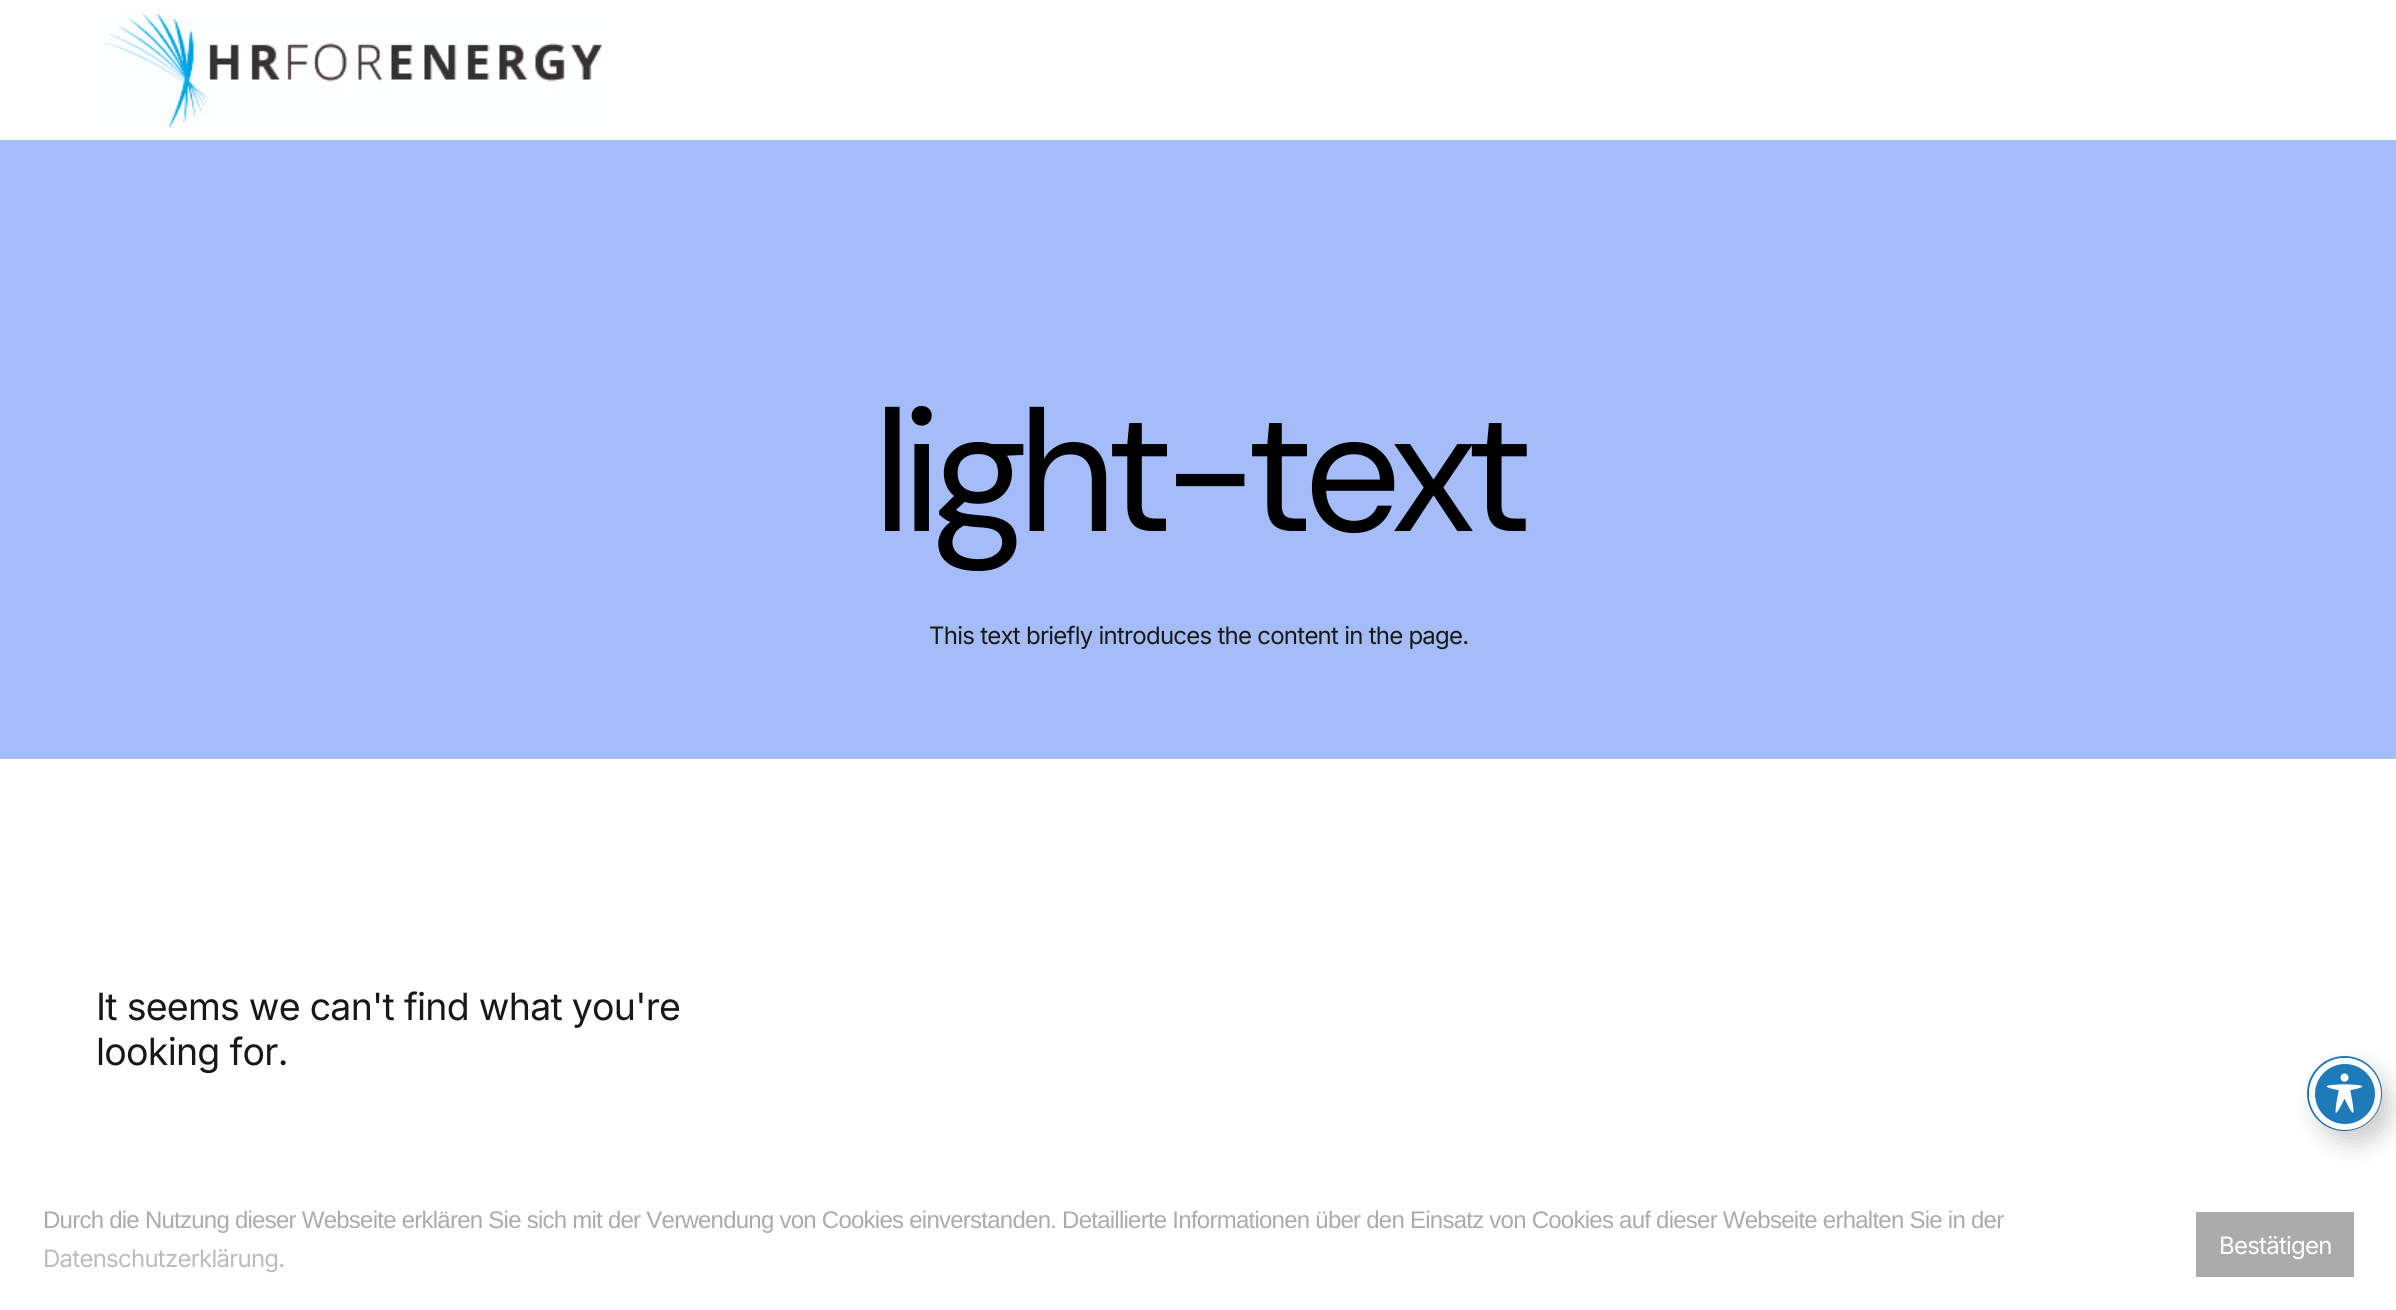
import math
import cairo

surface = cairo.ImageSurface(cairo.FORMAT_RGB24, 2396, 1310)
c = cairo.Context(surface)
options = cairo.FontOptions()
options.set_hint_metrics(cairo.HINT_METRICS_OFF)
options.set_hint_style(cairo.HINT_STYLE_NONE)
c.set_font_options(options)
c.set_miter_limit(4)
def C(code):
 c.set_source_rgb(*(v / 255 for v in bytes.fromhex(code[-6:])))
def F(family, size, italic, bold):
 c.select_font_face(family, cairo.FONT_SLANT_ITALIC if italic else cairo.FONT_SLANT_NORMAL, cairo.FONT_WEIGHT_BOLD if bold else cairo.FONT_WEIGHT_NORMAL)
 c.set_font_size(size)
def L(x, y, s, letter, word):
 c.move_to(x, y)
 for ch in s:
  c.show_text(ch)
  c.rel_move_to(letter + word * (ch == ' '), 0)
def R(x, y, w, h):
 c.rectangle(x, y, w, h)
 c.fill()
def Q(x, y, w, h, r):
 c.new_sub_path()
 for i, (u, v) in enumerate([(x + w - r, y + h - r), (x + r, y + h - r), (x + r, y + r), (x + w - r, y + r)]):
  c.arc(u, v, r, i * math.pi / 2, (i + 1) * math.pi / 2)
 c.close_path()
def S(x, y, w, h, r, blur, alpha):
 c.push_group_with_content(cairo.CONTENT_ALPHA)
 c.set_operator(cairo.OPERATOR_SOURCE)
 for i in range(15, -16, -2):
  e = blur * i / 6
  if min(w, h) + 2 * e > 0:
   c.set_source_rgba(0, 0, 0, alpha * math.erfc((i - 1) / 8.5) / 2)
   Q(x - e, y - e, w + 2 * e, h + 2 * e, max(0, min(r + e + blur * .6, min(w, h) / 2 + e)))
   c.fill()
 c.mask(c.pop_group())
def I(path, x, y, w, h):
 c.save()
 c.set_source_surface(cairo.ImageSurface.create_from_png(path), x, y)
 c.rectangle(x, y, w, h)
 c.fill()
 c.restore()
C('ffffff')
c.paint()
I('1.png',103,8,499,120)
C('a4bdf8')
R(0,140,2396,619)
F('DM Sans',172.5,0,0)
C('000000')
L(873,531,'light-text',-10.5,0)
F('Inter',24,0,0)
C('181818')
L(929,644,'This text briefly introduces the content in the page.',-.75,0)
F('Inter',37.5,0,0)
L(96,1020,'It seems we can\'t find what you\'re',-.75,0)
L(96,1065,'looking for.',-.75,0)
c.new_path()
c.arc(2344.5,1093.5,36.5,0,2 * math.pi)
C('1e7ab9')
c.stroke()
C('000000')
S(2318,1070,72,72,36,12,.2)
C('1e7ab9')
c.arc(2345,1094,33,0,2 * math.pi)
c.fill_preserve()
C('ffffff')
c.set_line_width(6)
c.stroke()
I('2.png',2326,1073,37,40)
F('Liberation Sans',24,0,0)
C('ababab')
L(43,1228,'Durch die Nutzung dieser Webseite erklären Sie sich mit der Verwendung von Cookies einverstanden. Detaillierte Informationen über den Einsatz von Cookies auf dieser Webseite erhalten Sie in der',-.75,0)
F('Inter',24,0,0)
C('bcbcbc')
L(43,1267,'Datenschutzerklärung.',-.75,0)
C('ababab')
R(2196,1212,158,65)
C('ffffff')
L(2219,1254,'Bestätigen',-.75,0)
surface.write_to_png('o.png')
